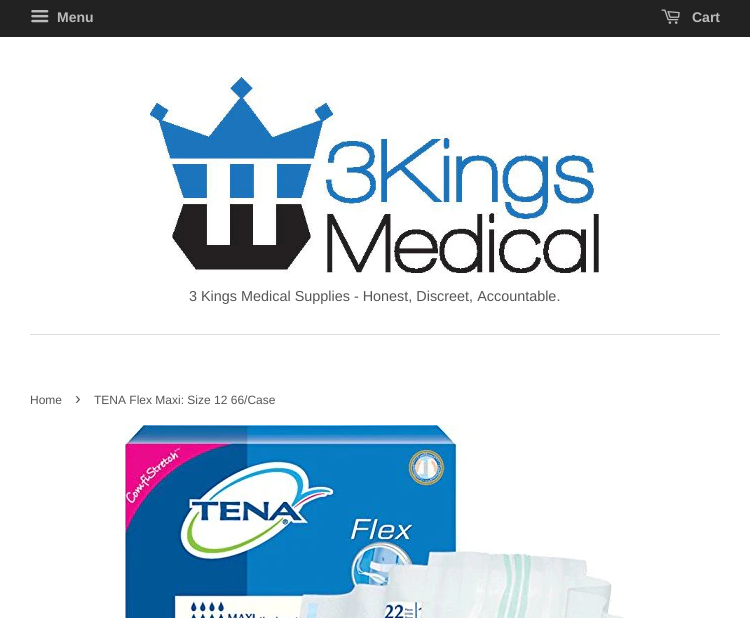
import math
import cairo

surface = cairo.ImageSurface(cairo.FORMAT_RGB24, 750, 618)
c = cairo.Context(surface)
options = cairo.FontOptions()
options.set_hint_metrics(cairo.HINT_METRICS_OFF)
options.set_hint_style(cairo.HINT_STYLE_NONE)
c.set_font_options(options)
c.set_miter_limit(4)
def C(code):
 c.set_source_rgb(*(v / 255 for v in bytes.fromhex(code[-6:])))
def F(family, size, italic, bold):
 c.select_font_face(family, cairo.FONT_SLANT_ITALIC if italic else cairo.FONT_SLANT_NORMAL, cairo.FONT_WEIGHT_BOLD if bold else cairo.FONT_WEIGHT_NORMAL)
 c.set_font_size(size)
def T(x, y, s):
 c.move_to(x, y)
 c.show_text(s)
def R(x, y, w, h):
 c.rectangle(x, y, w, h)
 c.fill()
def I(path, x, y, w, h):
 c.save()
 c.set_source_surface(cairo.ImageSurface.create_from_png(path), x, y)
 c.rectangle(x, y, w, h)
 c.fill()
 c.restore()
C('ffffff')
c.paint()
C('222222')
R(0,0,750,37)
I('1.png',31,10,18,13)
F('Liberation Sans',14,0,1)
C('bbbbbb')
T(57,22,'Menu')
I('2.png',661,9,19,15)
T(692,22,'Cart')
C('dddddd')
R(30,334,690,1)
I('3.png',150,77,449,196)
F('Liberation Sans',14.4,0,0)
C('555555')
T(189,301,'3 Kings Medical Supplies - Honest, Discreet, Accountable.')
F('Liberation Sans',12,0,0)
T(30,404,'Home')
F('Liberation Sans',17,0,0)
T(75,404,'›')
F('Liberation Sans',12,0,0)
T(94,404,'TENA Flex Maxi: Size 12 66/Case')
I('4.png',125,425,500,193)
surface.write_to_png('o.png')
